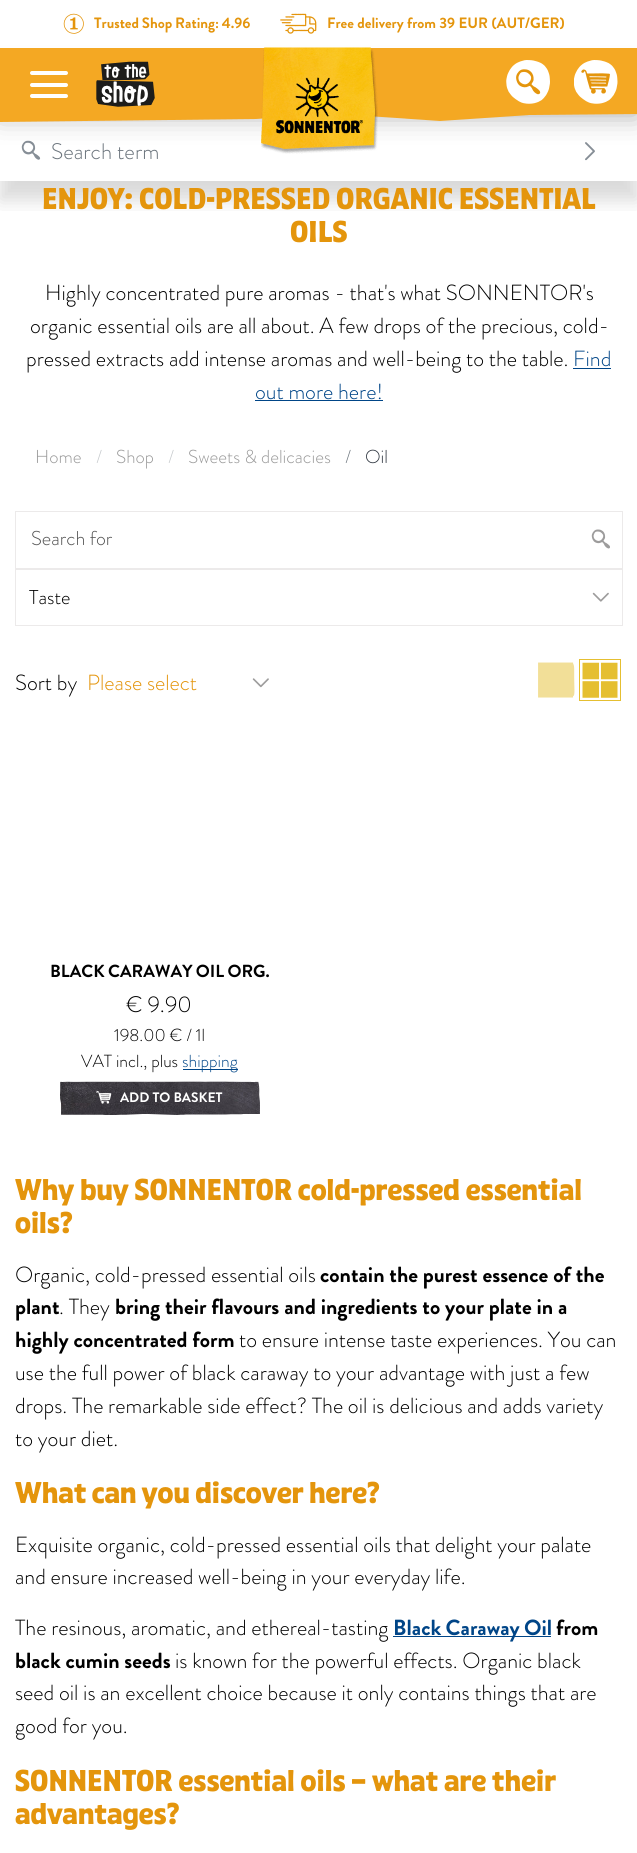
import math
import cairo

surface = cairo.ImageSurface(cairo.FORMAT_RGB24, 637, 1853)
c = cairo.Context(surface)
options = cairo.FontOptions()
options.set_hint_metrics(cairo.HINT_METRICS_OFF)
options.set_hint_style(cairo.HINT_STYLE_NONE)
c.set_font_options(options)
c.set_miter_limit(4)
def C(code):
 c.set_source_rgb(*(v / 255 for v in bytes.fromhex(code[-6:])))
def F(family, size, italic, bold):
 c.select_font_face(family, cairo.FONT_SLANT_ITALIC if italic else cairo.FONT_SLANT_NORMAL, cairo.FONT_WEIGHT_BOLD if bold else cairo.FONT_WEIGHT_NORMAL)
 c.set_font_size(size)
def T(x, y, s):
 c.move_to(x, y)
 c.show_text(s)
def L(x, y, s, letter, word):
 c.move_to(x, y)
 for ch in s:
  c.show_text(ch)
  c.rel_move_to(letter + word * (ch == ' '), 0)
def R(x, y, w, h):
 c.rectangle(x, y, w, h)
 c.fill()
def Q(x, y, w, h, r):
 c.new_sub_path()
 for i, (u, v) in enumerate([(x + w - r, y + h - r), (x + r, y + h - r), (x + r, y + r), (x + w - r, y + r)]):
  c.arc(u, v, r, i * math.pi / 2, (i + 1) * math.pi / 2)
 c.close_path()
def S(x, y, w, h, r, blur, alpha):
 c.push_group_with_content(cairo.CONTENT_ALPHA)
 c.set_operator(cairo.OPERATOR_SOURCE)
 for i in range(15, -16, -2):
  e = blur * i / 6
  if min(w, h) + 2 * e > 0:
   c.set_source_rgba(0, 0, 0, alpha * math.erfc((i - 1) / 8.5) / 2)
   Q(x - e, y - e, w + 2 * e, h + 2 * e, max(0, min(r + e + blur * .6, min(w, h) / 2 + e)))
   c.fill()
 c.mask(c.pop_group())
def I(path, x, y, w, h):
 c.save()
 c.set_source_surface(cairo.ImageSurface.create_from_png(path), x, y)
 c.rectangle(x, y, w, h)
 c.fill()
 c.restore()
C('ffffff')
c.paint()
I('1.png',63,13,21,21)
F('Brandon Grotesque',15,0,1)
C('e4950c')
L(94,28,'Trusted Shop Rating: 4.96',0,-.5)
I('2.png',280,13,37,21)
T(327,28,'Free delivery from 39 EUR (AUT/GER)')
c.save()
c.rectangle(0,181,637,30)
c.clip()
C('000000')
S(0,139,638,61,0,9.5,.15)
c.restore()
I('9.png',21,140,20,20)
I('10.png',585,142,10,19)
C('000000')
S(0,75,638,40,0,14,.33)
C('f4a823')
c.new_path()
c.move_to(0,48)
c.line_to(0,122)
c.line_to(255,119)
c.line_to(338,114)
c.line_to(440,121)
c.line_to(529,115)
c.line_to(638,114)
c.line_to(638,48)
c.close_path()
c.fill()
C('ffffff')
Q(30,71,38,4,2)
c.fill()
Q(30,83,38,4,2)
c.fill()
Q(30,94,38,4,2)
c.fill()
I('3.png',96,61,59,46)
I('4.png',261,47,117,107)
I('5.png',506,60,44,44)
I('6.png',516,69,25,26)
I('7.png',574,60,44,44)
I('8.png',581,69,29,25)
F('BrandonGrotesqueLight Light',22.5,0,0)
C('6c757d')
T(51,159,'Search term')
F('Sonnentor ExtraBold',30,0,0)
C('e4950c')
L(42,209,'ENJOY: COLD-PRESSED ORGANIC ESSENTIAL',0,-.5)
T(290,242,'OILS')
F('BrandonGrotesqueLight Light',21.9,0,0)
C('000000')
T(45,300,'Highly concentrated pure aromas - that\'s what SONNENTOR\'s')
T(30,333,'organic essential oils are all about. A few drops of the precious, cold-')
T(26,366,'pressed extracts add intense aromas and well-being to the table.')
C('004587')
T(573,366,'Find')
R(573,368,38,1)
T(255,399,'out more here!')
R(255,400,128,1)
F('BrandonGrotesqueLight Light',18.75,0,0)
C('999999')
T(35,463,'Home')
C('c4c8cb')
T(96,463,'/')
C('999999')
T(116,463,'Shop')
C('c4c8cb')
T(168,463,'/')
C('999999')
T(188,463,'Sweets & delicacies')
C('6c757d')
T(345,463,'/')
C('2d343e')
T(365,463,'Oil')
c.rectangle(15.5,511.5,607,57)
C('eceaea')
c.set_line_width(1)
c.stroke()
F('BrandonGrotesqueLight Light',20,0,0)
C('545454')
T(31,545,'Search for')
I('11.png',591,529,19,20)
c.rectangle(15.5,569.5,607,56)
C('eceaea')
c.stroke()
C('000000')
T(29,604,'Taste')
I('12.png',592,592,17,10)
F('BrandonGrotesqueLight Light',21.9,0,0)
T(15,690,'Sort by')
C('e4950c')
T(87,690,'Please select')
I('13.png',252,678,17,10)
I('14.png',538,662,37,36)
I('15.png',582,662,36,36)
c.rectangle(579.5,659.5,41,41)
C('e5bf31')
c.stroke()
F('Brandon Grotesque',17.5,0,1)
C('000000')
L(50,977,'BLACK CARAWAY OIL ORG.',0,-.5)
F('BrandonGrotesqueLight Light',22.5,0,0)
T(126,1012,'€ 9.90')
F('BrandonGrotesqueLight Light',17.5,0,0)
T(114,1041,'198.00 € / 1l')
T(81,1067,'VAT incl., plus')
C('004587')
R(183,1069,55,1)
T(182,1067,'shipping')
I('16.png',60,1081,200,34)
I('17.png',96,1091,16,13)
F('Brandon Grotesque',13.75,0,1)
C('ffffff')
T(120,1102,'ADD TO BASKET')
F('Sonnentor ExtraBold',30,0,0)
C('e4950c')
L(15,1200,'Why buy SONNENTOR cold-pressed essential',0,-.5)
T(15,1233,'oils?')
F('BrandonGrotesqueLight Light',21.9,0,0)
C('000000')
T(15,1282,'Organic, cold-pressed essential oils')
F('Brandon Grotesque',21.9,0,1)
T(320,1282,'contain the purest essence of the')
T(15,1314,'plant')
F('BrandonGrotesqueLight Light',21.9,0,0)
T(59,1314,'. They')
F('Brandon Grotesque',21.9,0,1)
T(115,1314,'bring their flavours and ingredients to your plate in a')
T(15,1347,'highly concentrated form')
F('BrandonGrotesqueLight Light',21.9,0,0)
T(239,1347,'to ensure intense taste experiences. You can')
T(15,1380,'use the full power of black caraway to your advantage with just a few')
T(15,1413,'drops. The remarkable side effect? The oil is delicious and adds variety')
T(15,1446,'to your diet.')
F('Sonnentor ExtraBold',30,0,0)
C('e4950c')
L(15,1503,'What can you discover here?',0,-1)
F('BrandonGrotesqueLight Light',21.9,0,0)
C('000000')
T(15,1552,'Exquisite organic, cold-pressed essential oils that delight your palate')
T(15,1584,'and ensure increased well-being in your everyday life.')
T(15,1635,'The resinous, aromatic, and ethereal-tasting')
C('004587')
R(393,1636,158,1)
F('Brandon Grotesque',21.9,0,1)
L(393,1635,'Black Caraway Oil',0,-.5)
C('000000')
T(556,1635,'from')
T(15,1668,'black cumin seeds')
F('BrandonGrotesqueLight Light',21.9,0,0)
T(175,1668,'is known for the powerful effects. Organic black')
T(15,1700,'seed oil is an excellent choice because it only contains things that are')
T(15,1733,'good for you.')
F('Sonnentor ExtraBold',30,0,0)
C('e4950c')
L(15,1791,'SONNENTOR essential oils – what are their',0,-.5)
T(15,1824,'advantages?')
surface.write_to_png('o.png')
